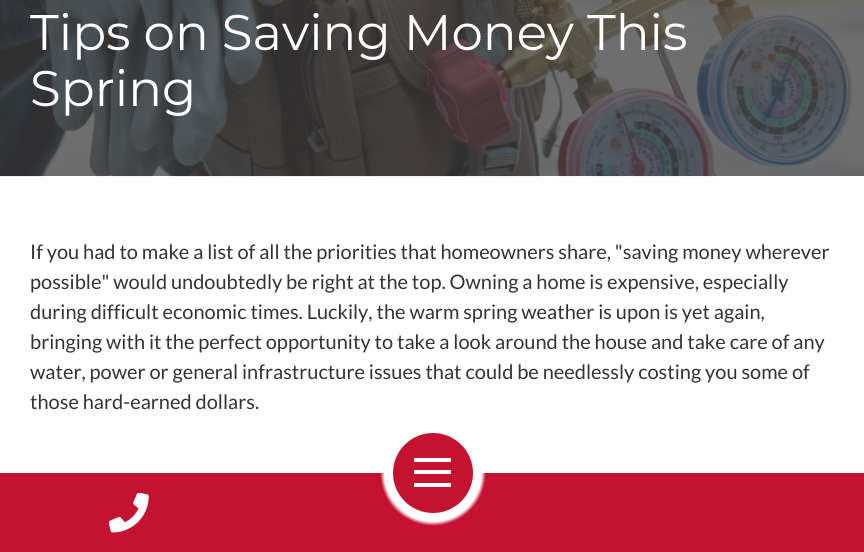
import math
import cairo

surface = cairo.ImageSurface(cairo.FORMAT_RGB24, 864, 552)
c = cairo.Context(surface)
options = cairo.FontOptions()
options.set_hint_metrics(cairo.HINT_METRICS_OFF)
options.set_hint_style(cairo.HINT_STYLE_NONE)
c.set_font_options(options)
c.set_miter_limit(4)
def C(code):
 c.set_source_rgb(*(v / 255 for v in bytes.fromhex(code[-6:])))
def F(family, size, italic, bold):
 c.select_font_face(family, cairo.FONT_SLANT_ITALIC if italic else cairo.FONT_SLANT_NORMAL, cairo.FONT_WEIGHT_BOLD if bold else cairo.FONT_WEIGHT_NORMAL)
 c.set_font_size(size)
def T(x, y, s):
 c.move_to(x, y)
 c.show_text(s)
def R(x, y, w, h):
 c.rectangle(x, y, w, h)
 c.fill()
def I(path, x, y, w, h):
 c.save()
 c.set_source_surface(cairo.ImageSurface.create_from_png(path), x, y)
 c.rectangle(x, y, w, h)
 c.fill()
 c.restore()
C('ffffff')
c.paint()
I('1.png',0,0,864,177)
F('Montserrat',50,0,0)
C('ffffff')
T(30,50,'Tips on Saving Money This')
T(30,106,'Spring')
F('Lato',20,0,0)
C('333333')
T(30,259,'If you had to make a list of all the priorities that homeowners share, "saving money wherever')
T(30,289,'possible" would undoubtedly be right at the top. Owning a home is expensive, especially')
T(30,319,'during difficult economic times. Luckily, the warm spring weather is upon is yet again,')
T(30,349,'bringing with it the perfect opportunity to take a look around the house and take care of any')
T(30,379,'water, power or general infrastructure issues that could be needlessly costing you some of')
T(30,409,'those hard-earned dollars.')
gradient = cairo.RadialGradient(433,473,0,433,473,440)
gradient.add_color_stop_rgba(.11,0.769,0.071,0.188,0)
gradient.add_color_stop_rgba(.12,0.769,0.071,0.188,1)
c.set_source(gradient)
R(0,473,864,79)
I('2.png',109,493,40,40)
C('c41230')
c.arc(433,473,40,0,2 * math.pi)
c.fill()
C('ffffff')
R(414,470,37,4)
R(414,458,37,4)
R(414,483,37,4)
surface.write_to_png('o.png')
